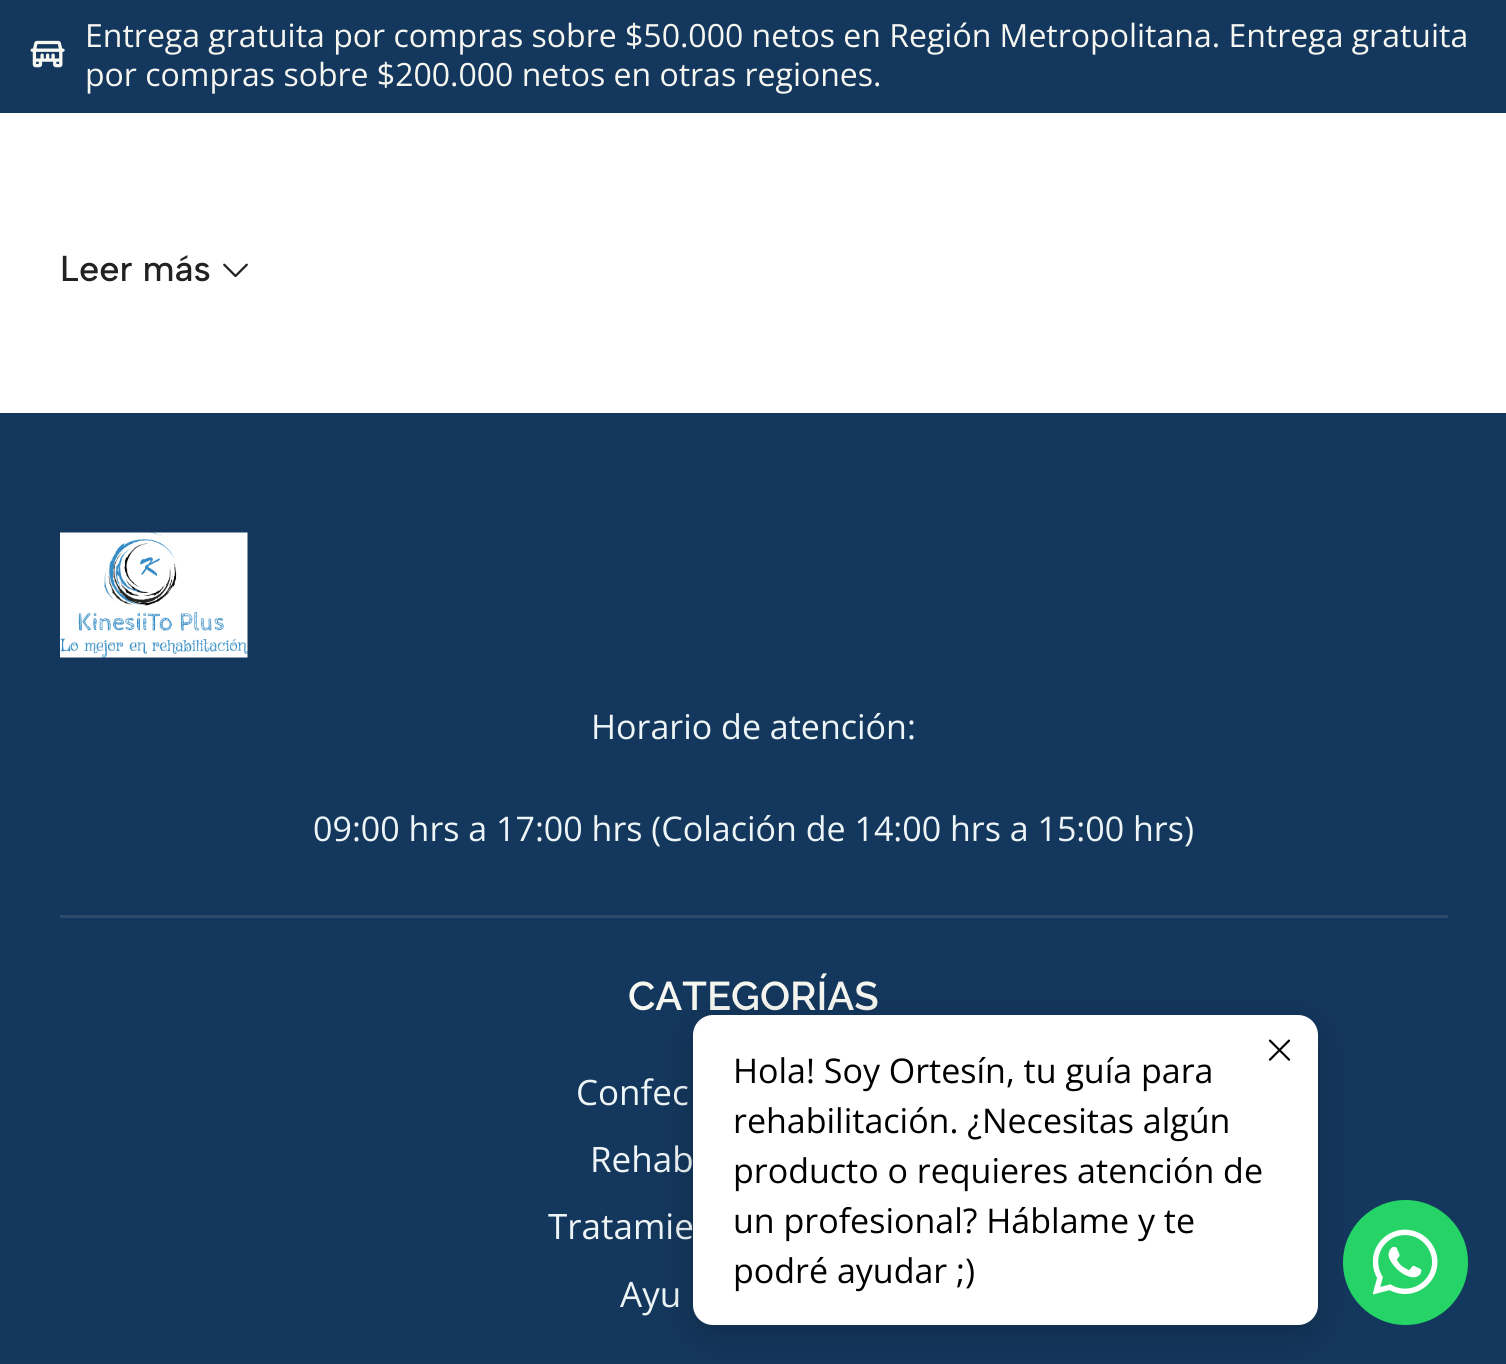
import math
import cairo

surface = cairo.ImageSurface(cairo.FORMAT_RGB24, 1506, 1364)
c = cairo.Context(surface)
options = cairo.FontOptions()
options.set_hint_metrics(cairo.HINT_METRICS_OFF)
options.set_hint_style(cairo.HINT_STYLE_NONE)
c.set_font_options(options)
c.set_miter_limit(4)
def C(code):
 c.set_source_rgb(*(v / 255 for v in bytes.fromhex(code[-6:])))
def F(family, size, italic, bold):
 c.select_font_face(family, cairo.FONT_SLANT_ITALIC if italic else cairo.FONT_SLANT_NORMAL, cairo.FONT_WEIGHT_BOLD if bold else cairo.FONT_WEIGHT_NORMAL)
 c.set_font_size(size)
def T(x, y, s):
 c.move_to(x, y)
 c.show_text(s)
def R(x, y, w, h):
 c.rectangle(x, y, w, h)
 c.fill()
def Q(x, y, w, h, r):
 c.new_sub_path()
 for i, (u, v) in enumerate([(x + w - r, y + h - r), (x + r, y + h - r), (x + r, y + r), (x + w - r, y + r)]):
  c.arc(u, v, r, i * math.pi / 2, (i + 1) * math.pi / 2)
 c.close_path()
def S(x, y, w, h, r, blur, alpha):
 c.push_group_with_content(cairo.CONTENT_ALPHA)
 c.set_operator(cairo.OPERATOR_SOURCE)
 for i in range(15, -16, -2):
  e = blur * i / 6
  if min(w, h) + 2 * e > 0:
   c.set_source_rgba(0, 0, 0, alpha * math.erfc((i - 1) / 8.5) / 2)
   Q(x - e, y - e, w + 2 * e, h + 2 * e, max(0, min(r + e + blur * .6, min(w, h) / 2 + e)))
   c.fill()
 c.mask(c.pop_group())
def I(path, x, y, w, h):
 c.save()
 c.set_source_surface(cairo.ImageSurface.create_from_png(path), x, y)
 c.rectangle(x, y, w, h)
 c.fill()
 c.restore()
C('ffffff')
c.paint()
C('14375d')
R(0,0,1506,113)
I('1.png',30,40,35,28)
F('Open Sans',32,0,0)
C('f7f7f2')
T(85,47,'Entrega gratuita por compras sobre $50.000 netos en Región Metropolitana. Entrega gratuita')
T(85,86,'por compras sobre $200.000 netos en otras regiones.')
F('Albert Sans Medium',36,0,0)
C('222222')
T(60,281,'Leer más')
I('2.png',223,263,25,15)
C('14375d')
R(0,413,1506,951)
I('3.png',60,532,188,126)
F('Open Sans',34,0,0)
C('eef5f7')
T(591,739,'Horario de atención:')
T(313,841,'09:00 hrs a 17:00 hrs (Colación de 14:00 hrs a 15:00 hrs)')
C('2b4a6c')
R(60,915,1388,3)
F('Raleway SemiBold',40,0,0)
C('f7f7f2')
T(628,1010,'CATEGORÍAS')
F('Open Sans',35,0,0)
C('eef5f7')
T(576,1105,'Confec')
T(590,1172,'Rehab')
T(548,1239,'Tratamie')
T(620,1307,'Ayu')
C('000000')
S(693,1025,625,310,20,19,.2)
C('ffffff')
Q(693,1015,625,310,20)
c.fill()
I('4.png',1268,1039,23,22)
F('Open Sans',34,0,0)
C('000000')
T(733,1083,'Hola! Soy Ortesín, tu guía para')
T(733,1133,'rehabilitación. ¿Necesitas algún')
T(733,1183,'producto o requieres atención de')
T(733,1233,'un profesional? Háblame y te')
T(733,1283,'podré ayudar ;)')
C('25d366')
c.new_path()
c.arc(1405.5,1262.5,62.5,0,2 * math.pi)
c.fill()
I('5.png',1373,1229,65,66)
surface.write_to_png('o.png')
